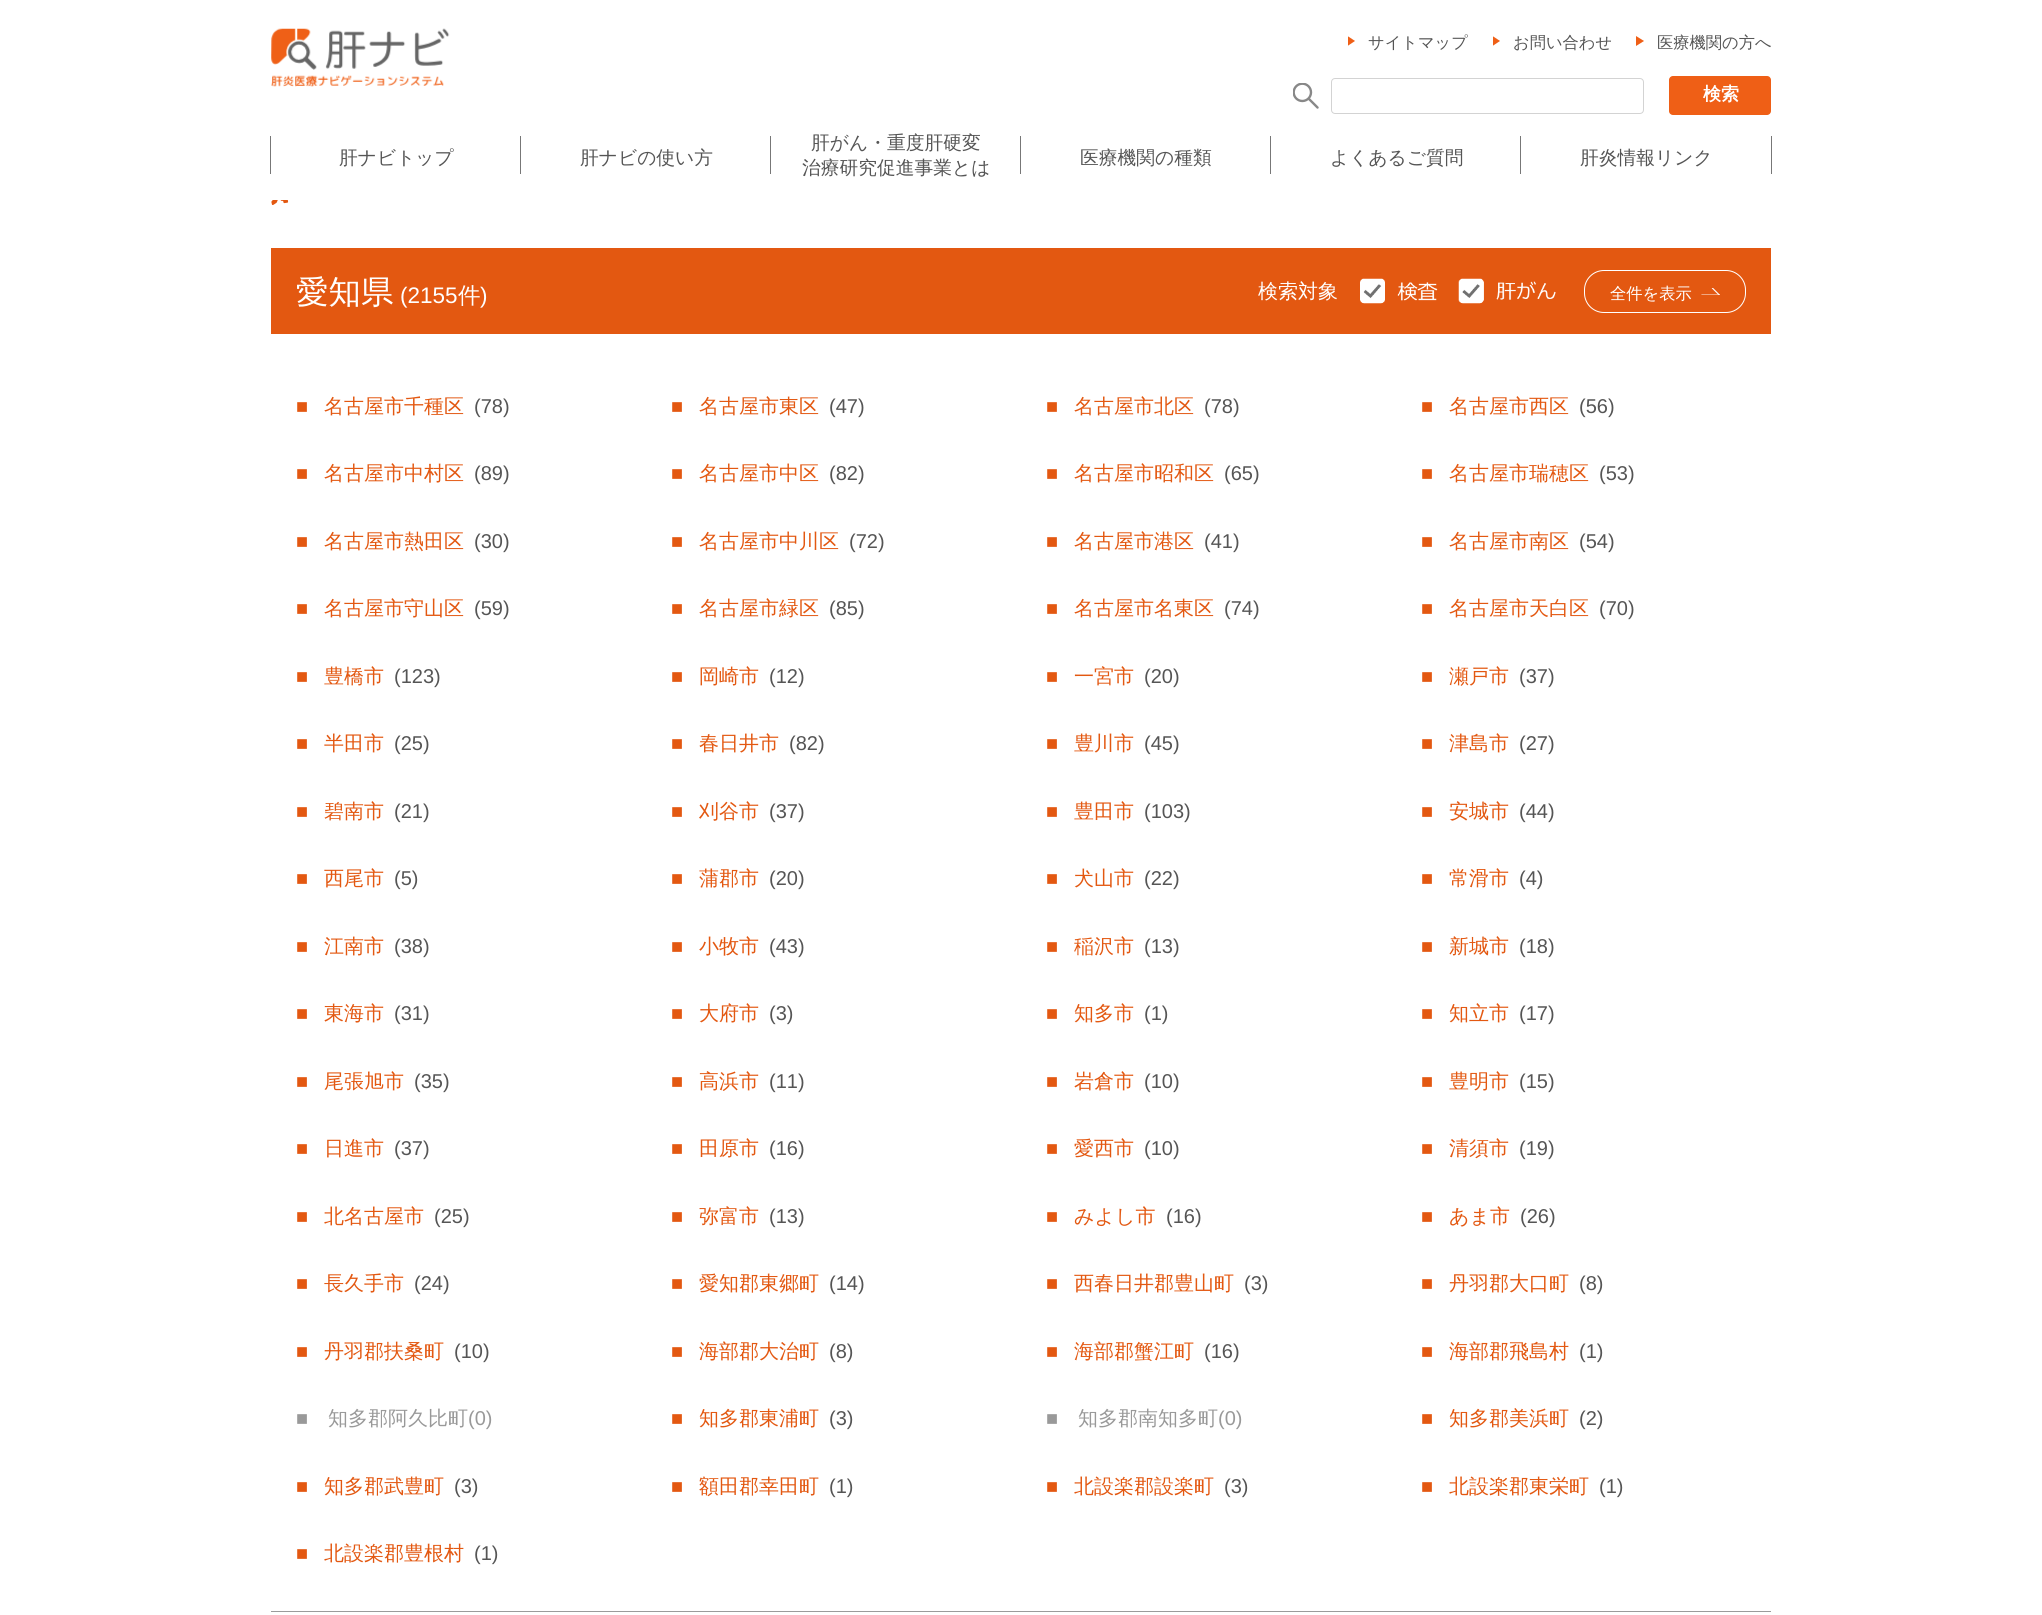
import math
import cairo

surface = cairo.ImageSurface(cairo.FORMAT_RGB24, 2042, 1615)
c = cairo.Context(surface)
options = cairo.FontOptions()
options.set_hint_metrics(cairo.HINT_METRICS_OFF)
options.set_hint_style(cairo.HINT_STYLE_NONE)
c.set_font_options(options)
c.set_miter_limit(4)
def C(code):
 c.set_source_rgb(*(v / 255 for v in bytes.fromhex(code[-6:])))
def F(family, size, italic, bold):
 c.select_font_face(family, cairo.FONT_SLANT_ITALIC if italic else cairo.FONT_SLANT_NORMAL, cairo.FONT_WEIGHT_BOLD if bold else cairo.FONT_WEIGHT_NORMAL)
 c.set_font_size(size)
def T(x, y, s):
 c.move_to(x, y)
 c.show_text(s)
def R(x, y, w, h):
 c.rectangle(x, y, w, h)
 c.fill()
def Q(x, y, w, h, r):
 c.new_sub_path()
 for i, (u, v) in enumerate([(x + w - r, y + h - r), (x + r, y + h - r), (x + r, y + r), (x + w - r, y + r)]):
  c.arc(u, v, r, i * math.pi / 2, (i + 1) * math.pi / 2)
 c.close_path()
def I(path, x, y, w, h):
 c.save()
 c.set_source_surface(cairo.ImageSurface.create_from_png(path), x, y)
 c.rectangle(x, y, w, h)
 c.fill()
 c.restore()
C('ffffff')
c.paint()
I('1.png',271,28,179,59)
c.save()
c.rectangle(1348,36,7,10)
c.clip()
C('ef5f16')
c.new_path()
c.move_to(1355,41)
c.line_to(1347.5,46)
c.line_to(1347.5,36)
c.close_path()
c.fill()
c.restore()
F('WenQuanYi Zen Hei Medium',16.25,0,0)
C('555555')
T(1368,48,'サイトマップ')
c.save()
c.rectangle(1493,36,7,10)
c.clip()
C('ef5f16')
c.new_path()
c.move_to(1500,41)
c.line_to(1492.5,46)
c.line_to(1492.5,36)
c.close_path()
c.fill()
c.restore()
T(1513,48,'お問い合わせ')
C('ef5f16')
c.new_path()
c.move_to(1644,41)
c.line_to(1636,46)
c.line_to(1636,36)
c.close_path()
c.fill()
C('555555')
T(1657,48,'医療機関の方へ')
I('2.png',1293,83,26,26)
Q(1331.5,78.5,312,35,3.5)
C('d3d3d3')
c.set_line_width(1)
c.stroke()
C('ef5f16')
Q(1669,76,102,39,4)
c.fill()
F('WenQuanYi Zen Hei',18,0,1)
C('ffffff')
T(1703,100,'検索')
C('777777')
R(270,136,1,38)
F('WenQuanYi Zen Hei Medium',18.75,0,0)
C('555555')
T(339,164,'肝ナビトップ')
C('777777')
R(520,136,1,38)
C('555555')
T(580,164,'肝ナビの使い方')
C('777777')
R(770,136,1,38)
C('555555')
T(811,149,'肝がん・重度肝硬変')
T(802,174,'治療研究促進事業とは')
C('777777')
R(1020,136,1,38)
C('555555')
T(1080,164,'医療機関の種類')
C('777777')
R(1270,136,1,38)
C('555555')
T(1330,164,'よくあるご質問')
C('777777')
R(1520,136,1,38)
C('555555')
T(1580,164,'肝炎情報リンク')
C('777777')
R(1771,136,1,38)
I('3.png',271,200,18,5)
C('e35811')
R(271,248,1500,86)
F('WenQuanYi Zen Hei Medium',32.5,0,0)
C('ffffff')
T(296,303,'愛知県')
F('Liberation Sans',22.5,0,0)
T(400,303,'(2155')
F('WenQuanYi Zen Hei Medium',22.5,0,0)
T(458,303,'件')
F('Liberation Sans',22.5,0,0)
T(480,303,')')
F('WenQuanYi Zen Hei Medium',20,0,0)
T(1258,298,'検索対象')
I('4.png',1360,278,78,26)
I('5.png',1458,278,98,26)
Q(1584.5,270.5,161,42,19.5)
c.stroke()
F('WenQuanYi Zen Hei Medium',16.25,0,0)
T(1610,299,'全件を表示')
I('6.png',1701,288,19,7)
C('9b9b9b')
R(271,1611,1500,1)
F('Liberation Sans',20,0,0)
C('e35811')
T(296,413,'■')
F('WenQuanYi Zen Hei Medium',20,0,0)
T(324,413,'名古屋市千種区')
F('Liberation Sans',20,0,0)
C('555555')
T(474,413,'(78)')
C('e35811')
T(671,413,'■')
F('WenQuanYi Zen Hei Medium',20,0,0)
T(699,413,'名古屋市東区')
F('Liberation Sans',20,0,0)
C('555555')
T(829,413,'(47)')
C('e35811')
T(1046,413,'■')
F('WenQuanYi Zen Hei Medium',20,0,0)
T(1074,413,'名古屋市北区')
F('Liberation Sans',20,0,0)
C('555555')
T(1204,413,'(78)')
C('e35811')
T(1421,413,'■')
F('WenQuanYi Zen Hei Medium',20,0,0)
T(1449,413,'名古屋市西区')
F('Liberation Sans',20,0,0)
C('555555')
T(1579,413,'(56)')
C('e35811')
T(296,480,'■')
F('WenQuanYi Zen Hei Medium',20,0,0)
T(324,480,'名古屋市中村区')
F('Liberation Sans',20,0,0)
C('555555')
T(474,480,'(89)')
C('e35811')
T(671,480,'■')
F('WenQuanYi Zen Hei Medium',20,0,0)
T(699,480,'名古屋市中区')
F('Liberation Sans',20,0,0)
C('555555')
T(829,480,'(82)')
C('e35811')
T(1046,480,'■')
F('WenQuanYi Zen Hei Medium',20,0,0)
T(1074,480,'名古屋市昭和区')
F('Liberation Sans',20,0,0)
C('555555')
T(1224,480,'(65)')
C('e35811')
T(1421,480,'■')
F('WenQuanYi Zen Hei Medium',20,0,0)
T(1449,480,'名古屋市瑞穂区')
F('Liberation Sans',20,0,0)
C('555555')
T(1599,480,'(53)')
C('e35811')
T(296,548,'■')
F('WenQuanYi Zen Hei Medium',20,0,0)
T(324,548,'名古屋市熱田区')
F('Liberation Sans',20,0,0)
C('555555')
T(474,548,'(30)')
C('e35811')
T(671,548,'■')
F('WenQuanYi Zen Hei Medium',20,0,0)
T(699,548,'名古屋市中川区')
F('Liberation Sans',20,0,0)
C('555555')
T(849,548,'(72)')
C('e35811')
T(1046,548,'■')
F('WenQuanYi Zen Hei Medium',20,0,0)
T(1074,548,'名古屋市港区')
F('Liberation Sans',20,0,0)
C('555555')
T(1204,548,'(41)')
C('e35811')
T(1421,548,'■')
F('WenQuanYi Zen Hei Medium',20,0,0)
T(1449,548,'名古屋市南区')
F('Liberation Sans',20,0,0)
C('555555')
T(1579,548,'(54)')
C('e35811')
T(296,615,'■')
F('WenQuanYi Zen Hei Medium',20,0,0)
T(324,615,'名古屋市守山区')
F('Liberation Sans',20,0,0)
C('555555')
T(474,615,'(59)')
C('e35811')
T(671,615,'■')
F('WenQuanYi Zen Hei Medium',20,0,0)
T(699,615,'名古屋市緑区')
F('Liberation Sans',20,0,0)
C('555555')
T(829,615,'(85)')
C('e35811')
T(1046,615,'■')
F('WenQuanYi Zen Hei Medium',20,0,0)
T(1074,615,'名古屋市名東区')
F('Liberation Sans',20,0,0)
C('555555')
T(1224,615,'(74)')
C('e35811')
T(1421,615,'■')
F('WenQuanYi Zen Hei Medium',20,0,0)
T(1449,615,'名古屋市天白区')
F('Liberation Sans',20,0,0)
C('555555')
T(1599,615,'(70)')
C('e35811')
T(296,683,'■')
F('WenQuanYi Zen Hei Medium',20,0,0)
T(324,683,'豊橋市')
F('Liberation Sans',20,0,0)
C('555555')
T(394,683,'(123)')
C('e35811')
T(671,683,'■')
F('WenQuanYi Zen Hei Medium',20,0,0)
T(699,683,'岡崎市')
F('Liberation Sans',20,0,0)
C('555555')
T(769,683,'(12)')
C('e35811')
T(1046,683,'■')
F('WenQuanYi Zen Hei Medium',20,0,0)
T(1074,683,'一宮市')
F('Liberation Sans',20,0,0)
C('555555')
T(1144,683,'(20)')
C('e35811')
T(1421,683,'■')
F('WenQuanYi Zen Hei Medium',20,0,0)
T(1449,683,'瀬戸市')
F('Liberation Sans',20,0,0)
C('555555')
T(1519,683,'(37)')
C('e35811')
T(296,750,'■')
F('WenQuanYi Zen Hei Medium',20,0,0)
T(324,750,'半田市')
F('Liberation Sans',20,0,0)
C('555555')
T(394,750,'(25)')
C('e35811')
T(671,750,'■')
F('WenQuanYi Zen Hei Medium',20,0,0)
T(699,750,'春日井市')
F('Liberation Sans',20,0,0)
C('555555')
T(789,750,'(82)')
C('e35811')
T(1046,750,'■')
F('WenQuanYi Zen Hei Medium',20,0,0)
T(1074,750,'豊川市')
F('Liberation Sans',20,0,0)
C('555555')
T(1144,750,'(45)')
C('e35811')
T(1421,750,'■')
F('WenQuanYi Zen Hei Medium',20,0,0)
T(1449,750,'津島市')
F('Liberation Sans',20,0,0)
C('555555')
T(1519,750,'(27)')
C('e35811')
T(296,818,'■')
F('WenQuanYi Zen Hei Medium',20,0,0)
T(324,818,'碧南市')
F('Liberation Sans',20,0,0)
C('555555')
T(394,818,'(21)')
C('e35811')
T(671,818,'■')
F('WenQuanYi Zen Hei Medium',20,0,0)
T(699,818,'刈谷市')
F('Liberation Sans',20,0,0)
C('555555')
T(769,818,'(37)')
C('e35811')
T(1046,818,'■')
F('WenQuanYi Zen Hei Medium',20,0,0)
T(1074,818,'豊田市')
F('Liberation Sans',20,0,0)
C('555555')
T(1144,818,'(103)')
C('e35811')
T(1421,818,'■')
F('WenQuanYi Zen Hei Medium',20,0,0)
T(1449,818,'安城市')
F('Liberation Sans',20,0,0)
C('555555')
T(1519,818,'(44)')
C('e35811')
T(296,885,'■')
F('WenQuanYi Zen Hei Medium',20,0,0)
T(324,885,'西尾市')
F('Liberation Sans',20,0,0)
C('555555')
T(394,885,'(5)')
C('e35811')
T(671,885,'■')
F('WenQuanYi Zen Hei Medium',20,0,0)
T(699,885,'蒲郡市')
F('Liberation Sans',20,0,0)
C('555555')
T(769,885,'(20)')
C('e35811')
T(1046,885,'■')
F('WenQuanYi Zen Hei Medium',20,0,0)
T(1074,885,'犬山市')
F('Liberation Sans',20,0,0)
C('555555')
T(1144,885,'(22)')
C('e35811')
T(1421,885,'■')
F('WenQuanYi Zen Hei Medium',20,0,0)
T(1449,885,'常滑市')
F('Liberation Sans',20,0,0)
C('555555')
T(1519,885,'(4)')
C('e35811')
T(296,953,'■')
F('WenQuanYi Zen Hei Medium',20,0,0)
T(324,953,'江南市')
F('Liberation Sans',20,0,0)
C('555555')
T(394,953,'(38)')
C('e35811')
T(671,953,'■')
F('WenQuanYi Zen Hei Medium',20,0,0)
T(699,953,'小牧市')
F('Liberation Sans',20,0,0)
C('555555')
T(769,953,'(43)')
C('e35811')
T(1046,953,'■')
F('WenQuanYi Zen Hei Medium',20,0,0)
T(1074,953,'稲沢市')
F('Liberation Sans',20,0,0)
C('555555')
T(1144,953,'(13)')
C('e35811')
T(1421,953,'■')
F('WenQuanYi Zen Hei Medium',20,0,0)
T(1449,953,'新城市')
F('Liberation Sans',20,0,0)
C('555555')
T(1519,953,'(18)')
C('e35811')
T(296,1020,'■')
F('WenQuanYi Zen Hei Medium',20,0,0)
T(324,1020,'東海市')
F('Liberation Sans',20,0,0)
C('555555')
T(394,1020,'(31)')
C('e35811')
T(671,1020,'■')
F('WenQuanYi Zen Hei Medium',20,0,0)
T(699,1020,'大府市')
F('Liberation Sans',20,0,0)
C('555555')
T(769,1020,'(3)')
C('e35811')
T(1046,1020,'■')
F('WenQuanYi Zen Hei Medium',20,0,0)
T(1074,1020,'知多市')
F('Liberation Sans',20,0,0)
C('555555')
T(1144,1020,'(1)')
C('e35811')
T(1421,1020,'■')
F('WenQuanYi Zen Hei Medium',20,0,0)
T(1449,1020,'知立市')
F('Liberation Sans',20,0,0)
C('555555')
T(1519,1020,'(17)')
C('e35811')
T(296,1088,'■')
F('WenQuanYi Zen Hei Medium',20,0,0)
T(324,1088,'尾張旭市')
F('Liberation Sans',20,0,0)
C('555555')
T(414,1088,'(35)')
C('e35811')
T(671,1088,'■')
F('WenQuanYi Zen Hei Medium',20,0,0)
T(699,1088,'高浜市')
F('Liberation Sans',20,0,0)
C('555555')
T(769,1088,'(11)')
C('e35811')
T(1046,1088,'■')
F('WenQuanYi Zen Hei Medium',20,0,0)
T(1074,1088,'岩倉市')
F('Liberation Sans',20,0,0)
C('555555')
T(1144,1088,'(10)')
C('e35811')
T(1421,1088,'■')
F('WenQuanYi Zen Hei Medium',20,0,0)
T(1449,1088,'豊明市')
F('Liberation Sans',20,0,0)
C('555555')
T(1519,1088,'(15)')
C('e35811')
T(296,1155,'■')
F('WenQuanYi Zen Hei Medium',20,0,0)
T(324,1155,'日進市')
F('Liberation Sans',20,0,0)
C('555555')
T(394,1155,'(37)')
C('e35811')
T(671,1155,'■')
F('WenQuanYi Zen Hei Medium',20,0,0)
T(699,1155,'田原市')
F('Liberation Sans',20,0,0)
C('555555')
T(769,1155,'(16)')
C('e35811')
T(1046,1155,'■')
F('WenQuanYi Zen Hei Medium',20,0,0)
T(1074,1155,'愛西市')
F('Liberation Sans',20,0,0)
C('555555')
T(1144,1155,'(10)')
C('e35811')
T(1421,1155,'■')
F('WenQuanYi Zen Hei Medium',20,0,0)
T(1449,1155,'清須市')
F('Liberation Sans',20,0,0)
C('555555')
T(1519,1155,'(19)')
C('e35811')
T(296,1223,'■')
F('WenQuanYi Zen Hei Medium',20,0,0)
T(324,1223,'北名古屋市')
F('Liberation Sans',20,0,0)
C('555555')
T(434,1223,'(25)')
C('e35811')
T(671,1223,'■')
F('WenQuanYi Zen Hei Medium',20,0,0)
T(699,1223,'弥富市')
F('Liberation Sans',20,0,0)
C('555555')
T(769,1223,'(13)')
C('e35811')
T(1046,1223,'■')
F('WenQuanYi Zen Hei Medium',20,0,0)
T(1074,1223,'みよし市')
F('Liberation Sans',20,0,0)
C('555555')
T(1166,1223,'(16)')
C('e35811')
T(1421,1223,'■')
F('WenQuanYi Zen Hei Medium',20,0,0)
T(1449,1223,'あま市')
F('Liberation Sans',20,0,0)
C('555555')
T(1520,1223,'(26)')
C('e35811')
T(296,1290,'■')
F('WenQuanYi Zen Hei Medium',20,0,0)
T(324,1290,'長久手市')
F('Liberation Sans',20,0,0)
C('555555')
T(414,1290,'(24)')
C('e35811')
T(671,1290,'■')
F('WenQuanYi Zen Hei Medium',20,0,0)
T(699,1290,'愛知郡東郷町')
F('Liberation Sans',20,0,0)
C('555555')
T(829,1290,'(14)')
C('e35811')
T(1046,1290,'■')
F('WenQuanYi Zen Hei Medium',20,0,0)
T(1074,1290,'西春日井郡豊山町')
F('Liberation Sans',20,0,0)
C('555555')
T(1244,1290,'(3)')
C('e35811')
T(1421,1290,'■')
F('WenQuanYi Zen Hei Medium',20,0,0)
T(1449,1290,'丹羽郡大口町')
F('Liberation Sans',20,0,0)
C('555555')
T(1579,1290,'(8)')
C('e35811')
T(296,1358,'■')
F('WenQuanYi Zen Hei Medium',20,0,0)
T(324,1358,'丹羽郡扶桑町')
F('Liberation Sans',20,0,0)
C('555555')
T(454,1358,'(10)')
C('e35811')
T(671,1358,'■')
F('WenQuanYi Zen Hei Medium',20,0,0)
T(699,1358,'海部郡大治町')
F('Liberation Sans',20,0,0)
C('555555')
T(829,1358,'(8)')
C('e35811')
T(1046,1358,'■')
F('WenQuanYi Zen Hei Medium',20,0,0)
T(1074,1358,'海部郡蟹江町')
F('Liberation Sans',20,0,0)
C('555555')
T(1204,1358,'(16)')
C('e35811')
T(1421,1358,'■')
F('WenQuanYi Zen Hei Medium',20,0,0)
T(1449,1358,'海部郡飛島村')
F('Liberation Sans',20,0,0)
C('555555')
T(1579,1358,'(1)')
C('999999')
T(296,1425,'■')
F('WenQuanYi Zen Hei Medium',20,0,0)
T(328,1425,'知多郡阿久比町')
F('Liberation Sans',20,0,0)
T(468,1425,'(0)')
C('e35811')
T(671,1425,'■')
F('WenQuanYi Zen Hei Medium',20,0,0)
T(699,1425,'知多郡東浦町')
F('Liberation Sans',20,0,0)
C('555555')
T(829,1425,'(3)')
C('999999')
T(1046,1425,'■')
F('WenQuanYi Zen Hei Medium',20,0,0)
T(1078,1425,'知多郡南知多町')
F('Liberation Sans',20,0,0)
T(1218,1425,'(0)')
C('e35811')
T(1421,1425,'■')
F('WenQuanYi Zen Hei Medium',20,0,0)
T(1449,1425,'知多郡美浜町')
F('Liberation Sans',20,0,0)
C('555555')
T(1579,1425,'(2)')
C('e35811')
T(296,1493,'■')
F('WenQuanYi Zen Hei Medium',20,0,0)
T(324,1493,'知多郡武豊町')
F('Liberation Sans',20,0,0)
C('555555')
T(454,1493,'(3)')
C('e35811')
T(671,1493,'■')
F('WenQuanYi Zen Hei Medium',20,0,0)
T(699,1493,'額田郡幸田町')
F('Liberation Sans',20,0,0)
C('555555')
T(829,1493,'(1)')
C('e35811')
T(1046,1493,'■')
F('WenQuanYi Zen Hei Medium',20,0,0)
T(1074,1493,'北設楽郡設楽町')
F('Liberation Sans',20,0,0)
C('555555')
T(1224,1493,'(3)')
C('e35811')
T(1421,1493,'■')
F('WenQuanYi Zen Hei Medium',20,0,0)
T(1449,1493,'北設楽郡東栄町')
F('Liberation Sans',20,0,0)
C('555555')
T(1599,1493,'(1)')
C('e35811')
T(296,1560,'■')
F('WenQuanYi Zen Hei Medium',20,0,0)
T(324,1560,'北設楽郡豊根村')
F('Liberation Sans',20,0,0)
C('555555')
T(474,1560,'(1)')
surface.write_to_png('o.png')
